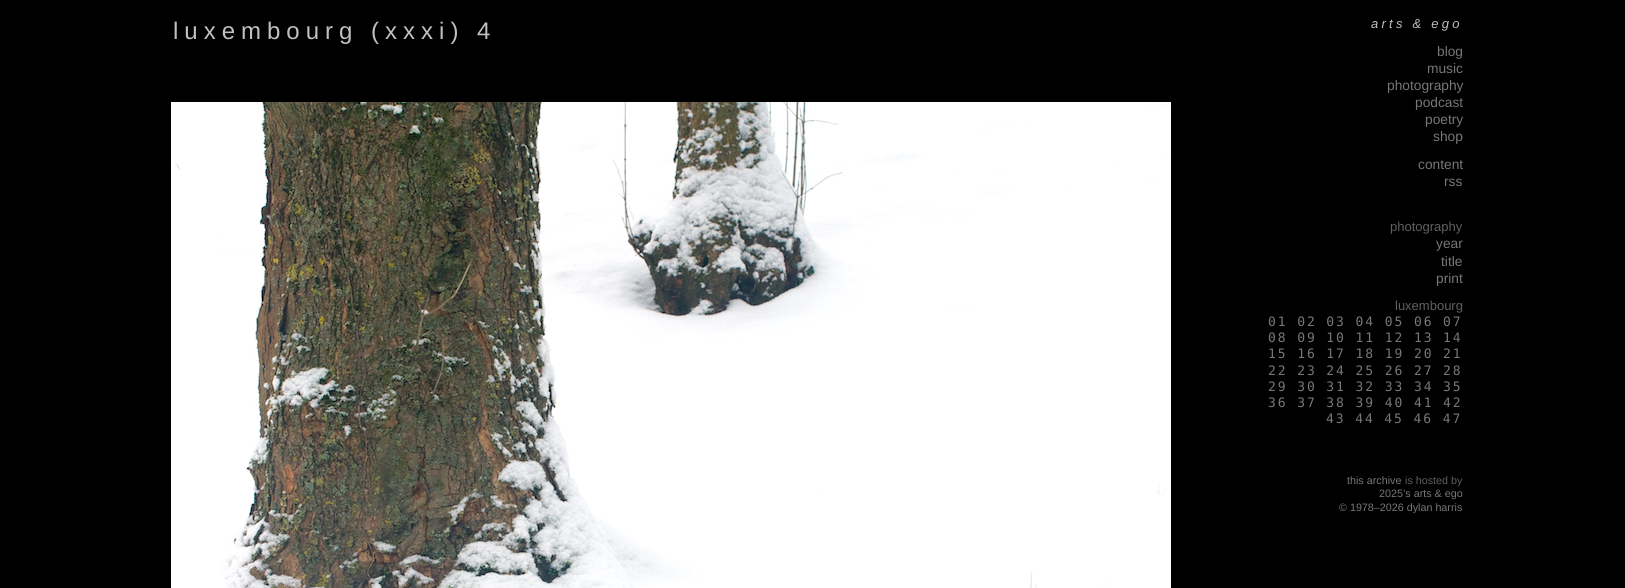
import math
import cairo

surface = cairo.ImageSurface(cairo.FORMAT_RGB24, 1625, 588)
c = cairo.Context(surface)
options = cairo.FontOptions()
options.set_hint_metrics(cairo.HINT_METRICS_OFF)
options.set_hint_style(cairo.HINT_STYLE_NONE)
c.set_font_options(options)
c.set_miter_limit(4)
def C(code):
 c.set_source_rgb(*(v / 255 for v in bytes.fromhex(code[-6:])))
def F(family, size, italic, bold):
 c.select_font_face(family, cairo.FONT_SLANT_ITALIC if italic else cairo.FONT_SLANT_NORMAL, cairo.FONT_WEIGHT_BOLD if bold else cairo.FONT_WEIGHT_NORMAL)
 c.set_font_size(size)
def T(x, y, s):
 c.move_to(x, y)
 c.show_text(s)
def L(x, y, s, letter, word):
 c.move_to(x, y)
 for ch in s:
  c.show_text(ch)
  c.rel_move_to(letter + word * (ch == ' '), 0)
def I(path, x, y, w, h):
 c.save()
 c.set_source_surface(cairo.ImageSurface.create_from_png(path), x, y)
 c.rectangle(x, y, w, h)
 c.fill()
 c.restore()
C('000000')
c.paint()
F('Liberation Sans',24,0,0)
C('c0c0c0')
L(173,39,'luxembourg (xxxi) 4',6,0)
I('1.png',171,102,1000,486)
F('Liberation Sans',13,1,0)
L(1371,28,'arts & ego',3.25,0)
F('Liberation Sans',13.75,0,0)
C('777777')
T(1437,56,'blog')
T(1427,73,'music')
T(1387,90,'photography')
T(1415,107,'podcast')
T(1425,124,'poetry')
T(1433,141,'shop')
T(1418,169,'content')
T(1444,186,'rss')
F('Liberation Sans',13,0,0)
C('606060')
T(1390,231,'photography')
F('Liberation Sans',13.75,0,0)
C('777777')
T(1436,248,'year')
T(1441,266,'title')
T(1436,283,'print')
F('Liberation Sans',13,0,0)
C('606060')
T(1395,310,'luxembourg')
F('DejaVu Sans Mono',13,0,0)
C('777777')
L(1268,326,'01 02 03 04 05 06 07',1.9,0)
L(1268,342,'08 09 10 11 12 13 14',1.9,0)
L(1268,358,'15 16 17 18 19 20 21',1.9,0)
L(1268,375,'22 23 24 25 26 27 28',1.9,0)
L(1268,391,'29 30 31 32 33 34 35',1.9,0)
L(1268,407,'36 37 38 39 40 41 42',1.9,0)
L(1326,423,'43 44 45 46 47',1.9,0)
F('Liberation Sans',10.75,0,0)
T(1347,484,'this archive')
C('606060')
T(1405,484,'is hosted by')
C('777777')
T(1379,497,'2025’s arts & ego')
T(1339,511,'© 1978–2026 dylan harris')
surface.write_to_png('o.png')
